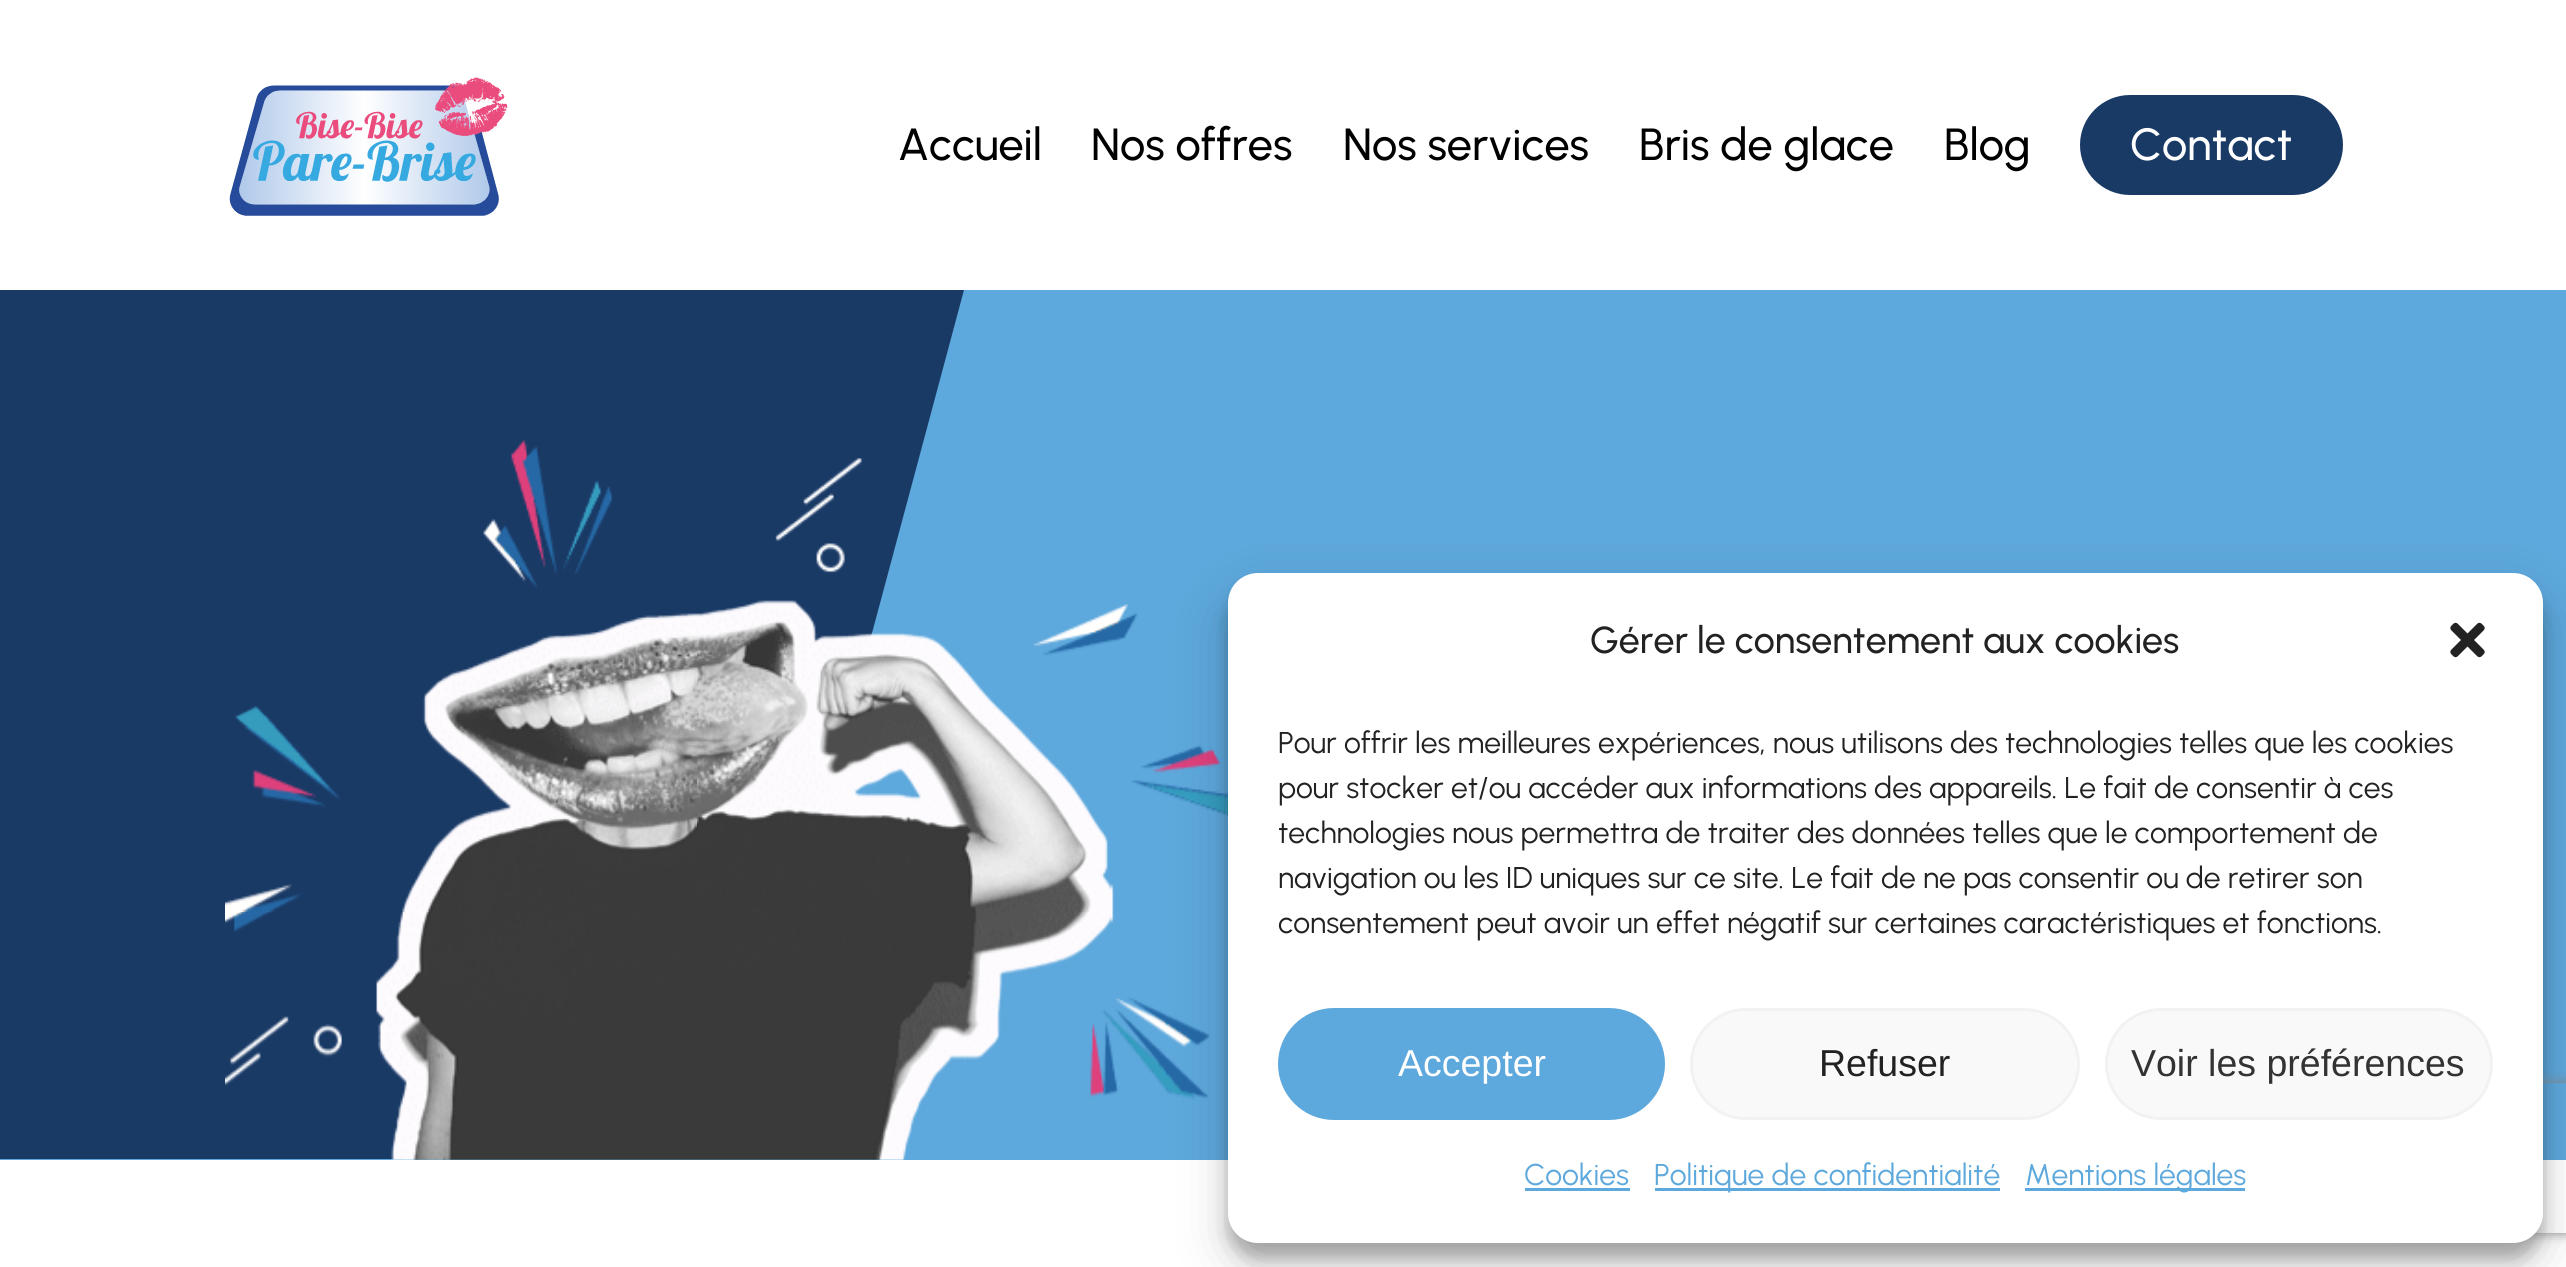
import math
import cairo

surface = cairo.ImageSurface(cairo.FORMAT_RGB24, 2566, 1267)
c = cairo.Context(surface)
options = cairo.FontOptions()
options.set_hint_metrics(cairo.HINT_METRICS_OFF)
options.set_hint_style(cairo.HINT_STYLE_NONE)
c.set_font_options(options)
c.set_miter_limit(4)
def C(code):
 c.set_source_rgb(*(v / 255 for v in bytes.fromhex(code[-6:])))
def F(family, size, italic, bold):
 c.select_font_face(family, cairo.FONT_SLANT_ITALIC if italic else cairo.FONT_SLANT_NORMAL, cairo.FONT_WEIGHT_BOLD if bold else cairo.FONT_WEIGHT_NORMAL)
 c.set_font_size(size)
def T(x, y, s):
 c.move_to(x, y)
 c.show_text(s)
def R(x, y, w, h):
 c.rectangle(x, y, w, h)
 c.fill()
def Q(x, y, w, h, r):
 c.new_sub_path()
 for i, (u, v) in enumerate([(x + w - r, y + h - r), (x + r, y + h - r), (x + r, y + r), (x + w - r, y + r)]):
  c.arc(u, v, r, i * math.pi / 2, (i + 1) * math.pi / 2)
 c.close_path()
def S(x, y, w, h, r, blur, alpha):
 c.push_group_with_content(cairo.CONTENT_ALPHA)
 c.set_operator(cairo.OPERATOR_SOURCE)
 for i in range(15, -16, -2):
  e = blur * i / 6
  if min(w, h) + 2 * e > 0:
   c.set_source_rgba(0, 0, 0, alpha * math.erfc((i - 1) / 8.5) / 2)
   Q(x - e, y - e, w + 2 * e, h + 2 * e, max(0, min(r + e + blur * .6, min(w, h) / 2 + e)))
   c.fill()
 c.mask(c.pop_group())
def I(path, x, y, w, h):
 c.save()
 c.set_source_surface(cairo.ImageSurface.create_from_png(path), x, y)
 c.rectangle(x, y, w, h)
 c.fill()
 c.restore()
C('ffffff')
c.paint()
I('1.png',229,77,279,139)
F('Urbanist Medium',45,0,0)
C('000000')
T(898,160,'Accueil')
T(1091,160,'Nos offres')
T(1343,160,'Nos services')
T(1639,160,'Bris de glace')
T(1944,160,'Blog')
C('1a3a66')
Q(2080,95,263,100,50)
c.fill()
C('ffffff')
T(2130,160,'Contact')
C('5da8dc')
R(0,290,2566,870)
C('1a3a66')
c.new_path()
c.move_to(-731,290)
c.line_to(964,290)
c.line_to(731,1159)
c.line_to(-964,1159)
c.close_path()
c.fill()
I('2.png',225,440,1003,720)
C('000000')
S(1228,588,1315,670,30,7.5,.23)
S(1228,598,1315,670,30,25,.19)
c.save()
c.set_fill_rule(cairo.FILL_RULE_EVEN_ODD)
c.new_path()
c.move_to(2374,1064)
c.line_to(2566,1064)
c.line_to(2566,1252)
c.line_to(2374,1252)
c.close_path()
c.move_to(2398,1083)
c.line_to(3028,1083)
c.curve_to(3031,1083,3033,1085,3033,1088)
c.line_to(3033,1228)
c.curve_to(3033,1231,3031,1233,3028,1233)
c.line_to(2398,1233)
c.curve_to(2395,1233,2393,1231,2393,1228)
c.line_to(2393,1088)
c.curve_to(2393,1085,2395,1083,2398,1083)
c.close_path()
c.clip()
C('808080')
S(2393,1083,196,150,5,6,1)
c.restore()
C('ffffff')
Q(1228,573,1315,670,30)
c.fill()
F('Urbanist Medium',37.5,0,0)
C('222222')
T(1590,653,'Gérer le consentement aux cookies')
I('3.png',2450,622,35,36)
F('Urbanist',30,0,0)
T(1278,753,'Pour offrir les meilleures expériences, nous utilisons des technologies telles que les cookies')
T(1278,798,'pour stocker et/ou accéder aux informations des appareils. Le fait de consentir à ces')
T(1278,843,'technologies nous permettra de traiter des données telles que le comportement de')
T(1278,888,'navigation ou les ID uniques sur ce site. Le fait de ne pas consentir ou de retirer son')
T(1278,933,'consentement peut avoir un effet négatif sur certaines caractéristiques et fonctions.')
C('5da8dc')
Q(1279.5,1009.5,384,109,54.5)
c.fill_preserve()
c.set_line_width(3)
c.stroke()
F('Liberation Sans',37.5,0,0)
C('ffffff')
T(1398,1076,'Accepter')
C('f9f9f9')
Q(1691.5,1009.5,387,109,54.5)
c.fill_preserve()
C('f2f2f2')
c.stroke()
C('222222')
T(1819,1076,'Refuser')
C('f9f9f9')
Q(2106.5,1009.5,385,109,54.5)
c.fill_preserve()
C('f2f2f2')
c.stroke()
C('333333')
T(2131,1076,'Voir les préférences')
F('Urbanist',30,0,0)
C('5da8dc')
T(1524,1185,'Cookies')
R(1525,1188,105,3)
R(1655,1188,345,3)
T(1654,1185,'Politique de confidentialité')
R(2025,1188,220,3)
T(2025,1185,'Mentions légales')
surface.write_to_png('o.png')
